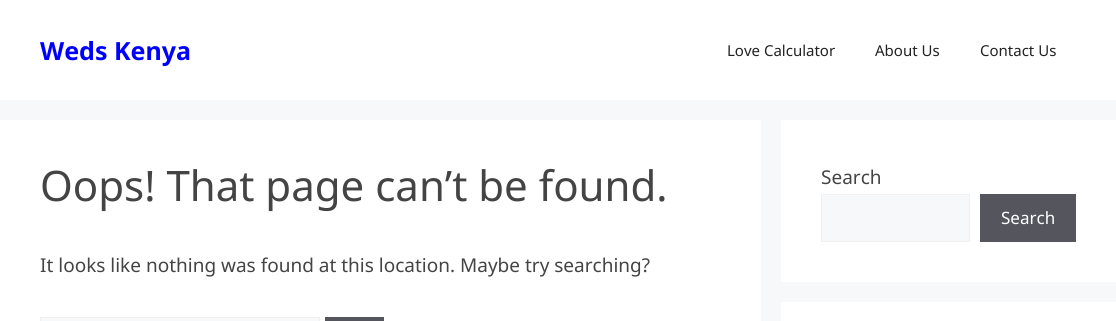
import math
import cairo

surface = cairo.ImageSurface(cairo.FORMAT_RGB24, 1116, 321)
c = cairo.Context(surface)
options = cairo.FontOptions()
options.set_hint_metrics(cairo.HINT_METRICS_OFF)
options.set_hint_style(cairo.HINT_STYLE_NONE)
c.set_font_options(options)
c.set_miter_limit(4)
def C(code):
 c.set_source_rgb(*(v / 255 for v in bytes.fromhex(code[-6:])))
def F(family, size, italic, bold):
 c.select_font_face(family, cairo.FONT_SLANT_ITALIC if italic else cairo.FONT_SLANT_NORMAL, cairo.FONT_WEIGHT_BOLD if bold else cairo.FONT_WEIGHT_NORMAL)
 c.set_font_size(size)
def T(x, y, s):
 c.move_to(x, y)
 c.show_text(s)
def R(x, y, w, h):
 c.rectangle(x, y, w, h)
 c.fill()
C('f7f8f9')
c.paint()
C('ffffff')
R(0,0,1116,100)
F('Noto Sans',25,0,1)
C('0000ff')
T(40,60,'Weds Kenya')
F('Noto Sans',15,0,0)
C('222222')
T(727,56,'Love Calculator')
T(875,56,'About Us')
T(980,56,'Contact Us')
C('ffffff')
R(0,120,761,201)
F('Noto Sans',42,0,0)
C('444444')
T(40,201,'Oops! That page can’t be found.')
F('Noto Sans',19,0,0)
T(40,272,'It looks like nothing was found at this location. Maybe try searching?')
C('f7f8f9')
c.rectangle(40.5,317.5,279,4)
c.fill_preserve()
C('f0f0f0')
c.set_line_width(1)
c.stroke()
C('55555e')
R(325,317,59,4)
C('ffffff')
R(781,120,335,162)
C('444444')
T(821,184,'Search')
C('f7f8f9')
c.rectangle(821.5,194.5,148,47)
c.fill_preserve()
C('f0f0f0')
c.stroke()
C('55555e')
R(980,194,96,48)
F('Noto Sans',17,0,0)
C('ffffff')
T(1001,224,'Search')
R(781,302,335,19)
surface.write_to_png('o.png')
